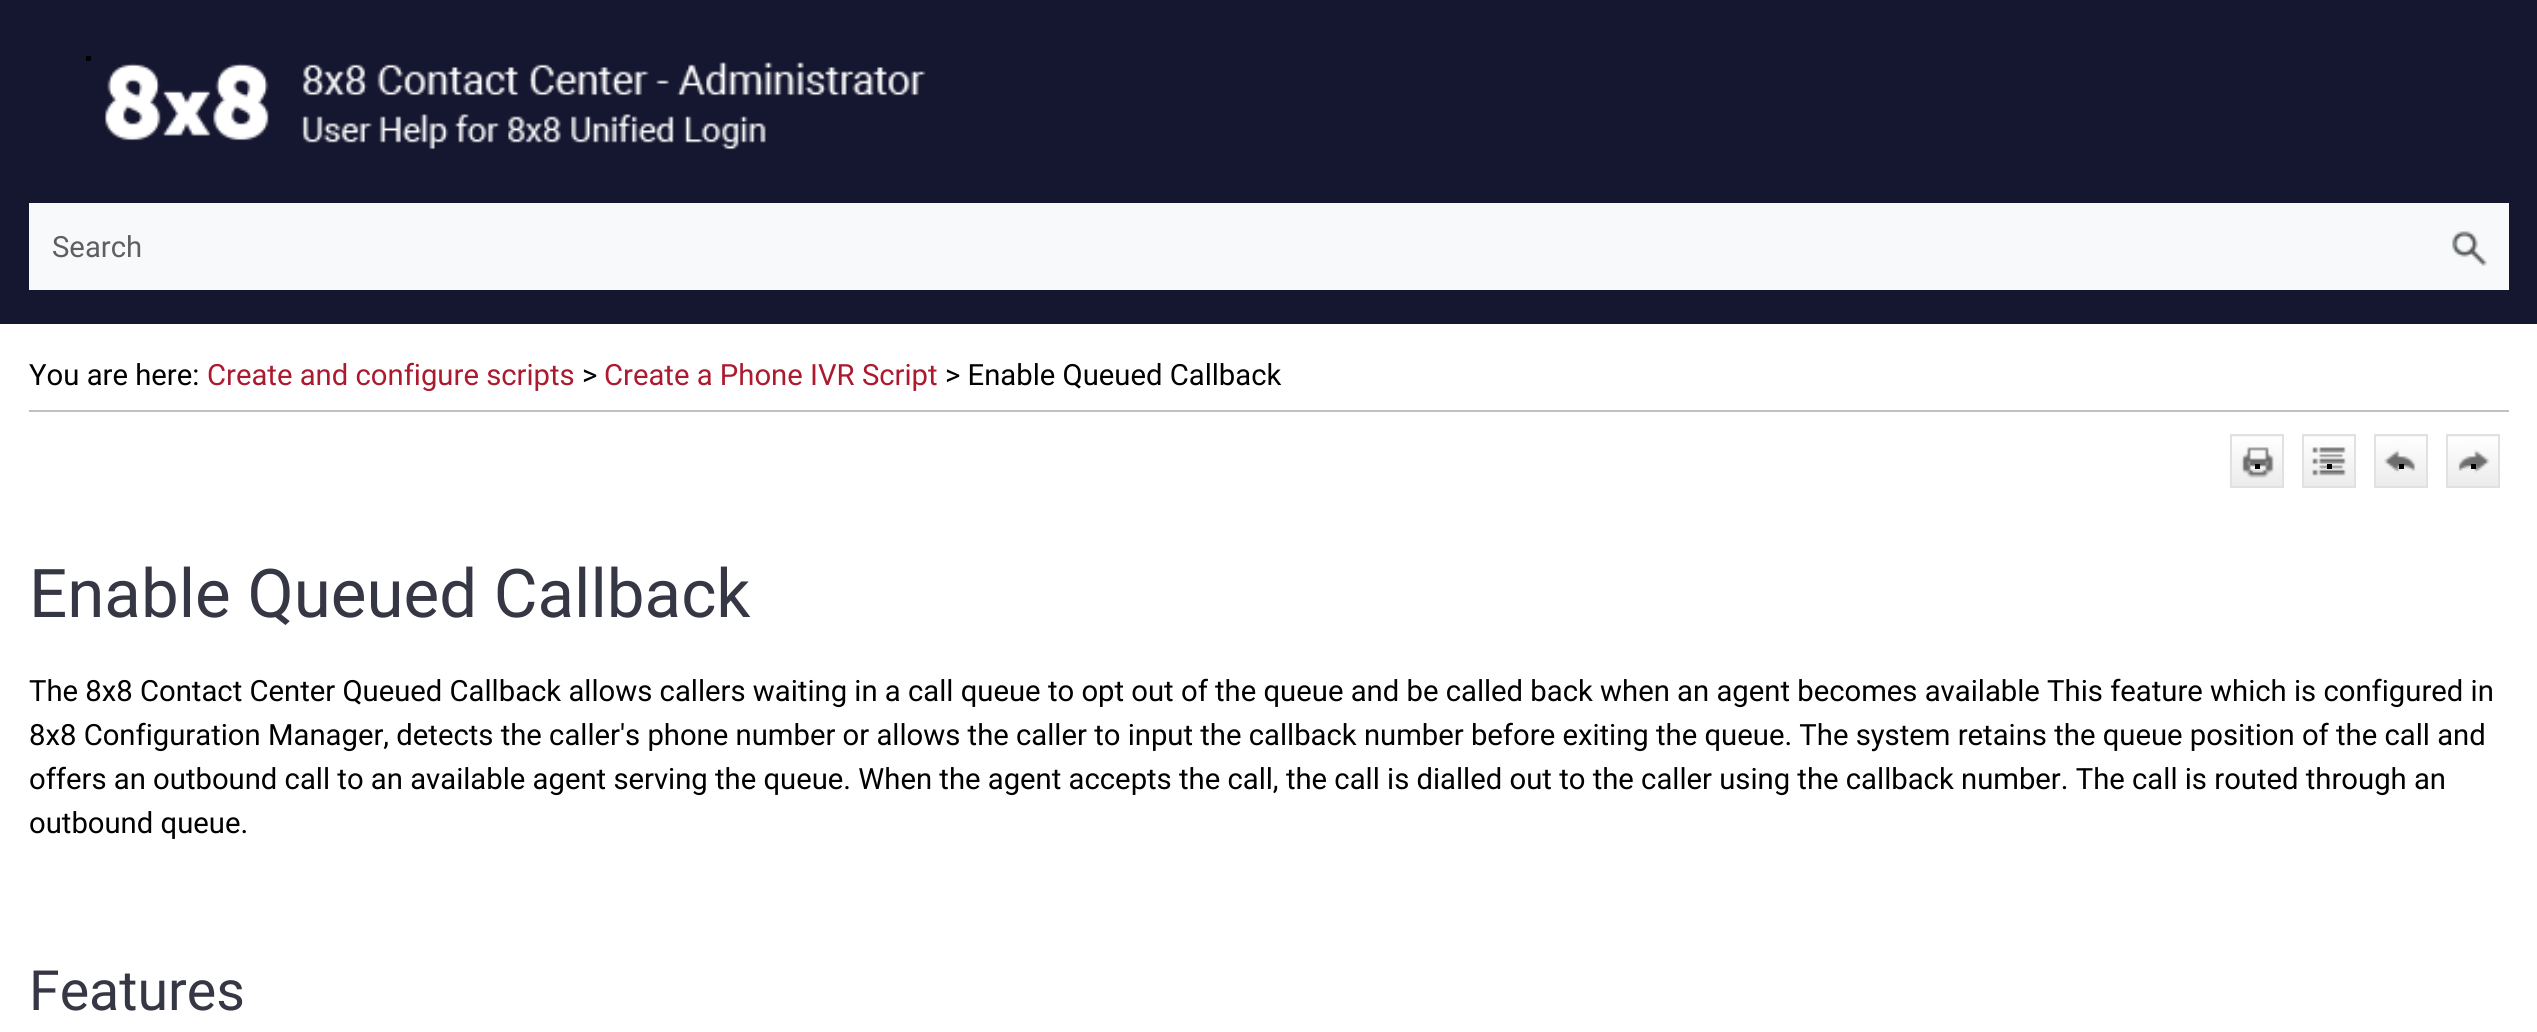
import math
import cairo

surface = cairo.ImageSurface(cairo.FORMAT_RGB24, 2537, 1032)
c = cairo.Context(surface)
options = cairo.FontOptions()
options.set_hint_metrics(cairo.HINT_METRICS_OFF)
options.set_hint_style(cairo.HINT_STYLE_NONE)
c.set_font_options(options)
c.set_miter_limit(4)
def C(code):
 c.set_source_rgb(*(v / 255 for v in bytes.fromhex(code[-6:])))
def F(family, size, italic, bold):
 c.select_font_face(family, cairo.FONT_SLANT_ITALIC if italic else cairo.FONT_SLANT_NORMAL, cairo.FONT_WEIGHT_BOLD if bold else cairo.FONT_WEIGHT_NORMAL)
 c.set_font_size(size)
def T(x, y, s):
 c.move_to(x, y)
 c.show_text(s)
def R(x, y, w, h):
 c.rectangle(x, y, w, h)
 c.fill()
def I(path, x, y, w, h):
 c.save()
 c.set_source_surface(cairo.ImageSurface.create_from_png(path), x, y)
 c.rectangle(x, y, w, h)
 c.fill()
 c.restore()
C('ffffff')
c.paint()
C('151630')
R(0,0,2537,324)
I('1.png',104,62,822,88)
C('000000')
R(86,56,5,5)
C('f8f9fa')
R(29,203,2480,87)
F('Roboto',29.25,0,0)
C('5f5f5f')
T(52,257,'Search')
I('2.png',2452,231,35,35)
C('c0c0c0')
R(29,410,2480,2)
C('000000')
T(29,385,'You are here:')
C('ac1a2f')
T(207,385,'Create and configure scripts')
C('000000')
T(582,385,'>')
C('ac1a2f')
T(604,385,'Create a Phone IVR Script')
C('000000')
T(945,385,'> Enable Queued Callback')
I('3.png',2229,434,53,52)
c.rectangle(2231,435,52,52)
C('e1e1e1')
c.stroke()
C('000000')
R(2255,464,5,5)
I('4.png',2304,436,50,50)
c.rectangle(2303,435,52,52)
C('e1e1e1')
c.stroke()
C('000000')
R(2327,464,5,5)
I('5.png',2376,436,50,50)
c.rectangle(2375,435,52,52)
C('e1e1e1')
c.stroke()
C('000000')
R(2399,464,5,5)
I('6.png',2448,436,50,50)
c.rectangle(2447,435,52,52)
C('e1e1e1')
c.stroke()
C('000000')
R(2471,464,5,5)
F('Roboto',67.25,0,0)
C('363744')
T(29,617,'Enable Queued Callback')
F('Roboto',29.25,0,0)
C('000000')
T(29,701,'The 8x8 Contact Center Queued Callback allows callers waiting in a call queue to opt out of the queue and be called back when an agent becomes available This feature which is configured in')
T(29,745,'8x8 Configuration Manager, detects the caller\'s phone number or allows the caller to input the callback number before exiting the queue. The system retains the queue position of the call and')
T(29,789,'offers an outbound call to an available agent serving the queue. When the agent accepts the call, the call is dialled out to the caller using the callback number. The call is routed through an')
T(29,833,'outbound queue.')
F('Roboto',55.5,0,0)
C('363744')
T(29,1010,'Features')
surface.write_to_png('o.png')
